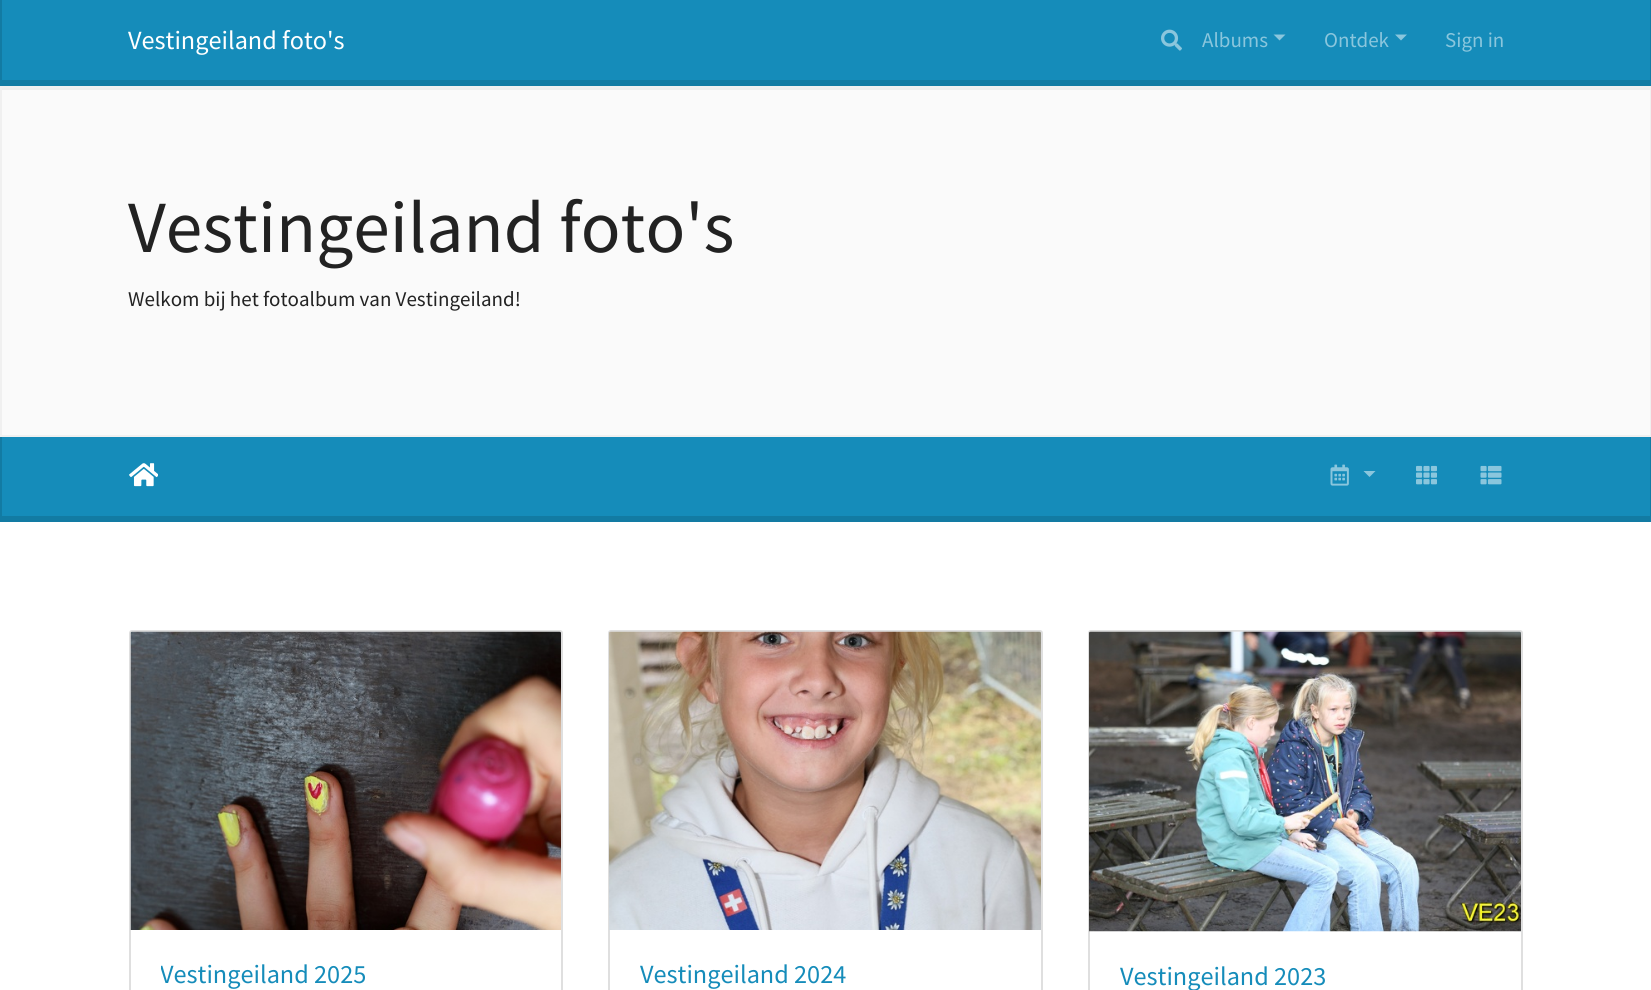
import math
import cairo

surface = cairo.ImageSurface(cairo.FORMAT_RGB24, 1651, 990)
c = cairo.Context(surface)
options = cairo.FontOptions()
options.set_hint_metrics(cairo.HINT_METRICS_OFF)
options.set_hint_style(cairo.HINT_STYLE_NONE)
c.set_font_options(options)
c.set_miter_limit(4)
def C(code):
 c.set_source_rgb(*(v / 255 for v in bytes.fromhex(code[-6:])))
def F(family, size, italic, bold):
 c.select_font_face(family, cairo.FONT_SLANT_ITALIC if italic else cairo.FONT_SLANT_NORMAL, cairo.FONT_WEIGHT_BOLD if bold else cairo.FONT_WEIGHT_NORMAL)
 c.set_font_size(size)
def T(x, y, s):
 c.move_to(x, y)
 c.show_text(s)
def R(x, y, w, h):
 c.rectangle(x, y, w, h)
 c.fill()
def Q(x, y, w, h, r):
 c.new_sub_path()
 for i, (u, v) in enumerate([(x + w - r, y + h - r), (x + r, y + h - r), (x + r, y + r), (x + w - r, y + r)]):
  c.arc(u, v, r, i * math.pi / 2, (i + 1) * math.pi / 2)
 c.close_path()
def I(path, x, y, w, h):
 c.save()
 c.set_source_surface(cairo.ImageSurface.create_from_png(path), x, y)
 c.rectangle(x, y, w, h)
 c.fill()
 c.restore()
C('ffffff')
c.paint()
C('158cba')
R(2,0,1648,80)
C('127ba3')
R(1650,0,1,86)
R(0,80,1651,6)
R(0,0,2,86)
F('Source Sans Pro',26.25,0,0)
C('ffffff')
T(128,49,'Vestingeiland foto\'s')
I('1.png',1161,29,21,22)
F('Source Sans Pro',21,0,0)
C('8ac6dd')
T(1202,47,'Albums')
c.new_path()
c.move_to(1273.5,34.5)
c.line_to(1285.5,34.5)
c.line_to(1279.5,40.5)
c.close_path()
c.fill()
T(1324,47,'Ontdek')
c.new_path()
c.move_to(1395,34.5)
c.line_to(1407,34.5)
c.line_to(1401,40.5)
c.close_path()
c.fill()
T(1445,47,'Sign in')
C('fafafa')
R(2,90,1648,345)
C('eeeeee')
R(2,88,1648,2)
c.rectangle(1,87,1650,349)
C('f0f0f0')
c.stroke()
F('Source Sans Pro',73.5,0,0)
C('222222')
T(128,252,'Vestingeiland foto\'s')
F('Source Sans Pro',21,0,0)
T(128,306,'Welkom bij het fotoalbum van Vestingeiland!')
C('158cba')
R(2,437,1648,79)
C('127ba3')
R(1650,437,1,85)
R(0,516,1651,6)
R(0,437,2,85)
I('2.png',129,463,29,24)
I('3.png',1330,464,19,22)
C('8ac6dd')
c.new_path()
c.move_to(1363.5,471)
c.line_to(1375.5,471)
c.line_to(1369.5,477)
c.close_path()
c.fill()
I('4.png',1416,465,21,20)
I('5.png',1480,465,22,20)
Q(130,631,432,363,2)
C('dfdfdf')
c.stroke()
I('6.png',130,631,431,299)
c.save()
c.rectangle(161,960,370,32)
c.clip()
F('Source Sans Pro',26.25,0,0)
C('158cba')
T(160,983,'Vestingeiland 2025')
c.restore()
Q(609,631,433,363,2)
c.stroke()
I('7.png',609,631,432,299)
F('Source Sans Pro',26.25,0,0)
C('158cba')
T(640,983,'Vestingeiland 2024')
Q(1089,631,433,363,2)
C('dfdfdf')
c.stroke()
I('8.png',1089,631,432,301)
C('158cba')
T(1120,985,'Vestingeiland 2023')
surface.write_to_png('o.png')
